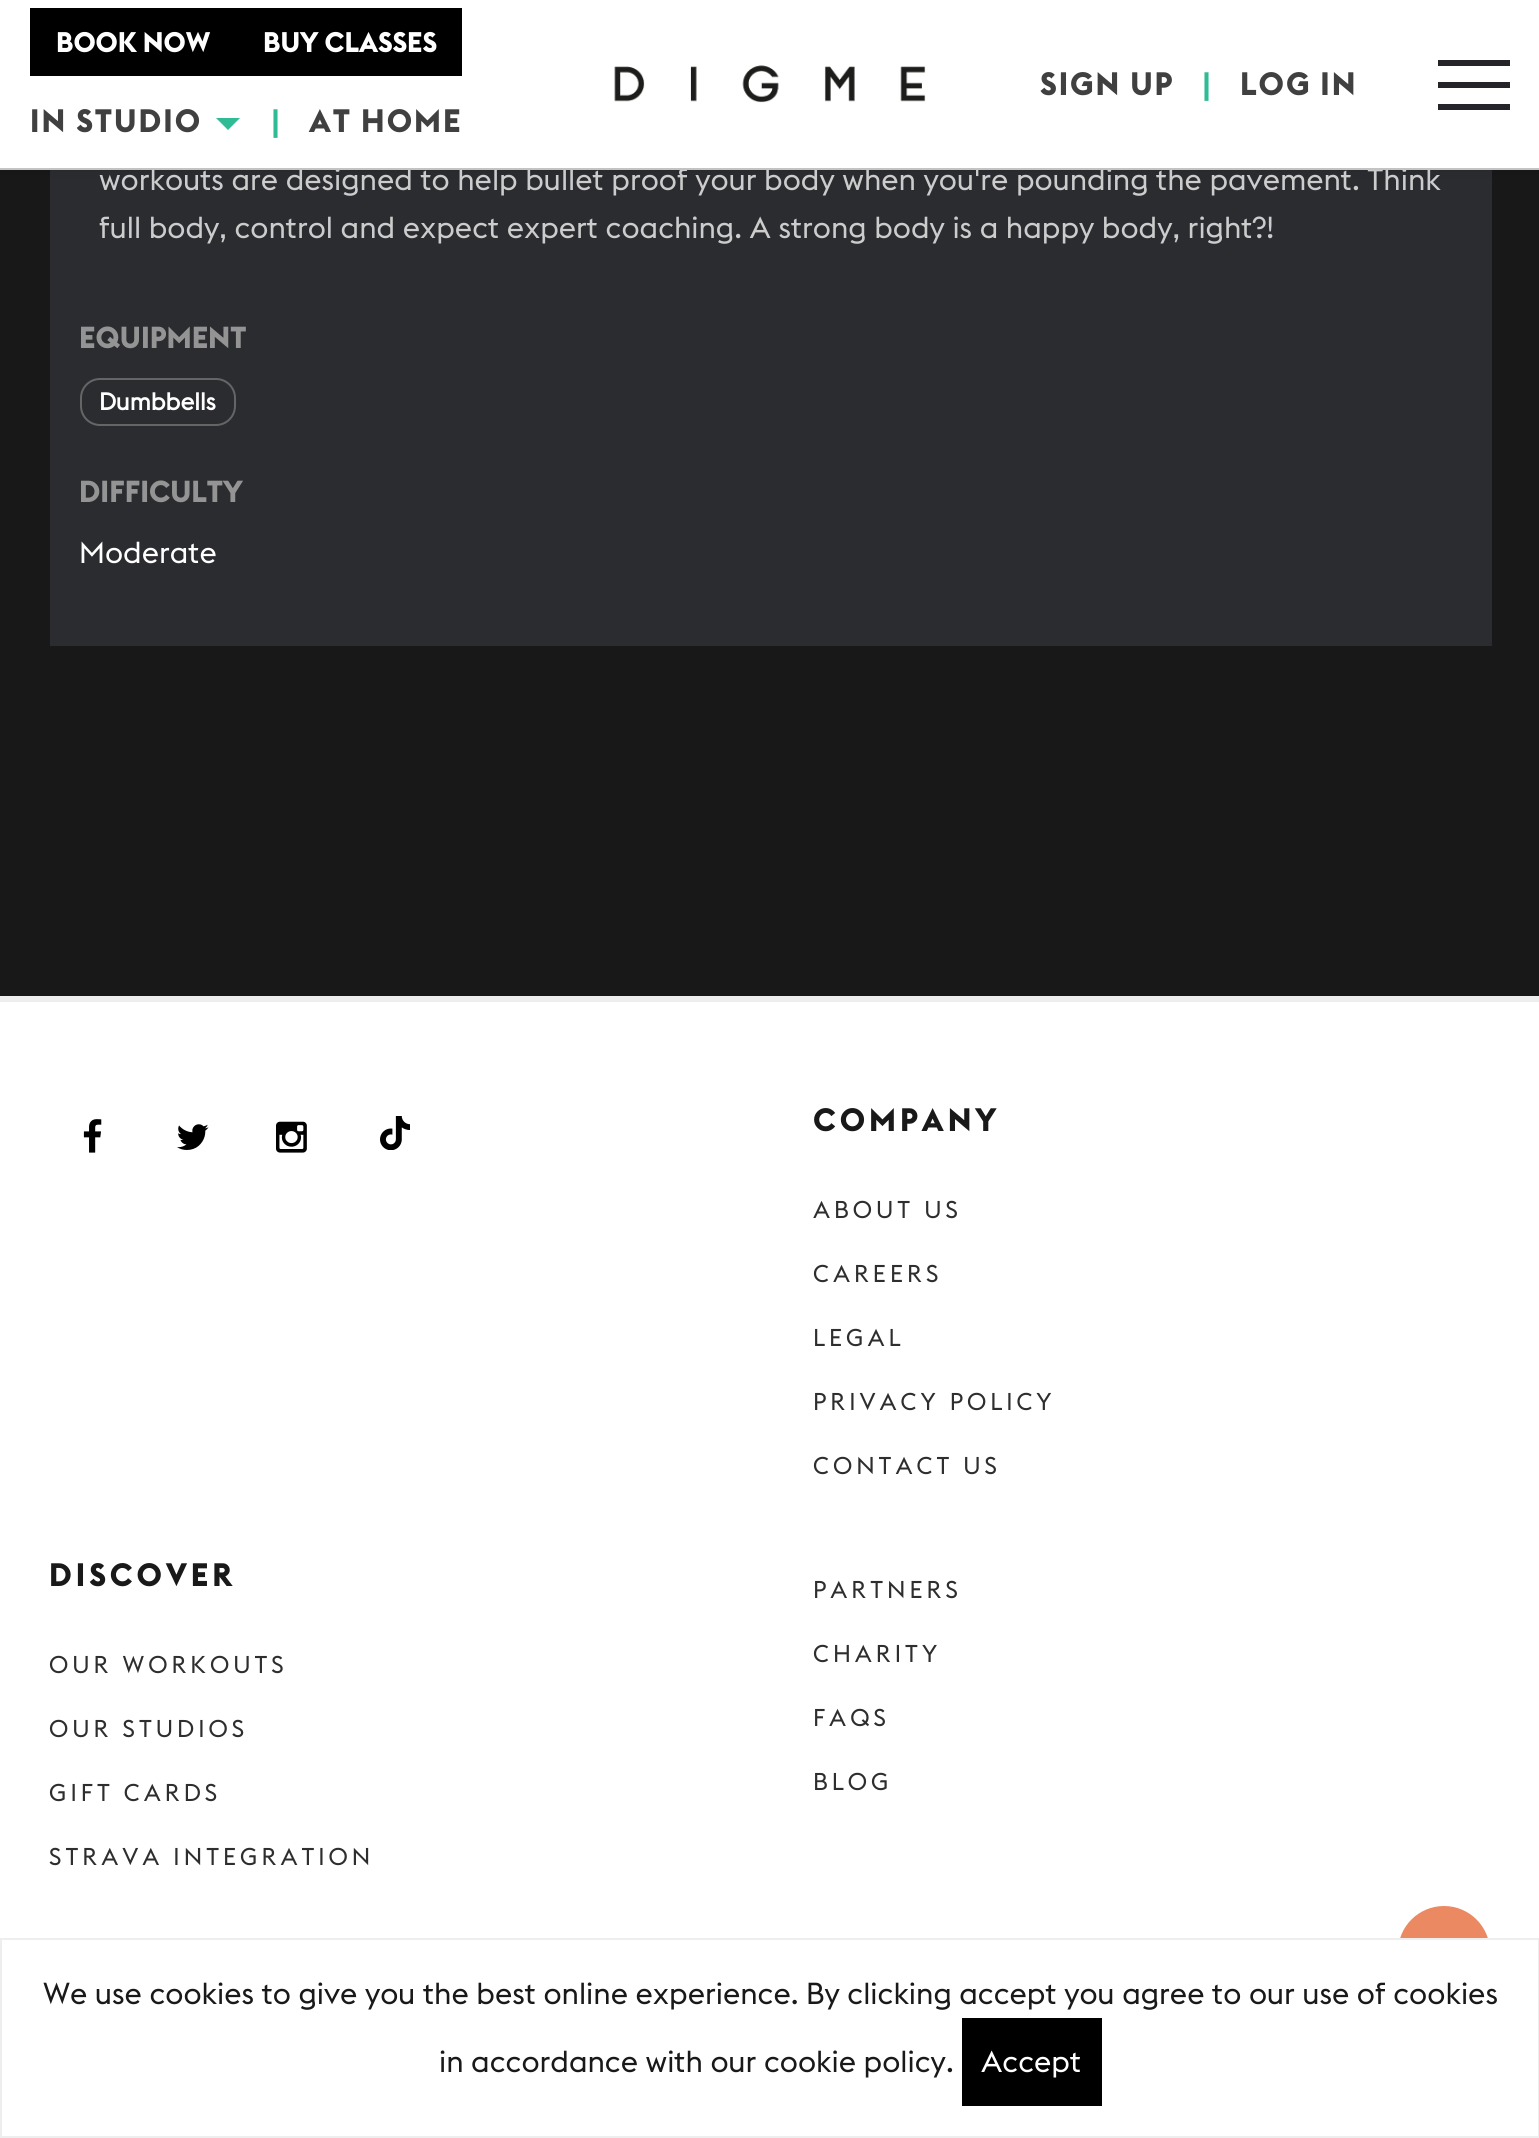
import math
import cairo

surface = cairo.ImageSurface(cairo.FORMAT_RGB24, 1539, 2138)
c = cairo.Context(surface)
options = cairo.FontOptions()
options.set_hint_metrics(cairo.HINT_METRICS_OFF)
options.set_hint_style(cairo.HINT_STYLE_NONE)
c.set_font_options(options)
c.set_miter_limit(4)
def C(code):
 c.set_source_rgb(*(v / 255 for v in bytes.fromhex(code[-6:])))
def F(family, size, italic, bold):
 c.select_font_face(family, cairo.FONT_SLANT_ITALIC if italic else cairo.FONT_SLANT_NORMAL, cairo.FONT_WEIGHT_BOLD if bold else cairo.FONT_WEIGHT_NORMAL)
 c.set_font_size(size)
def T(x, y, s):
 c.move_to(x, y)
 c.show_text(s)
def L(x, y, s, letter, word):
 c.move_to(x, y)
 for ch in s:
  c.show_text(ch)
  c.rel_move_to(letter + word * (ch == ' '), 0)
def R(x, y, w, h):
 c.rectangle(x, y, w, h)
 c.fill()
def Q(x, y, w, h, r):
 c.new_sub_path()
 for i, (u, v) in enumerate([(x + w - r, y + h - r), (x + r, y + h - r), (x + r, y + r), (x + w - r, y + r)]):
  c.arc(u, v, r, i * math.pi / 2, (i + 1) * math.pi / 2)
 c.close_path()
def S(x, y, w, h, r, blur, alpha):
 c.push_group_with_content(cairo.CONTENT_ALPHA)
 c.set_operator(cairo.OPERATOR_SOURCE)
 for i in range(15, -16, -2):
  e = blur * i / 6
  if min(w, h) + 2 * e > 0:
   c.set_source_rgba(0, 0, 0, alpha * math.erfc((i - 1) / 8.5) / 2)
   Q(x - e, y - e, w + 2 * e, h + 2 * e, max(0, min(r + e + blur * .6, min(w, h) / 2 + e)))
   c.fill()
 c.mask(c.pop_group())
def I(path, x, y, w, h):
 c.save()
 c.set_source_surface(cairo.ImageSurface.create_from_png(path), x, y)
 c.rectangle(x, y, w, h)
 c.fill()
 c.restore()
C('ffffff')
c.paint()
C('181818')
R(0,170,1539,826)
C('2b2c30')
R(50,170,1442,476)
C('000000')
S(0,4,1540,170,0,5,.05)
C('ffffff')
R(0,0,1539,168)
F('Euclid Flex',30,0,0)
C('cccccc')
T(99,190,'workouts are designed to help bullet proof your body when you\'re pounding the pavement. Think')
C('c3c3c3')
R(0,168,1539,2)
C('000000')
R(30,8,432,68)
F('Euclid Flex',28,0,1)
C('ffffff')
T(56,52,'BOOK NOW')
T(263,52,'BUY CLASSES')
F('Euclid Flex',32,0,1)
C('404041')
L(30,132,'IN STUDIO',2,0)
C('2ebb95')
c.new_path()
c.move_to(216,118)
c.line_to(240,118)
c.line_to(228,130)
c.close_path()
c.fill()
L(271,132,'|',2,0)
C('404041')
L(309,132,'AT HOME',2,0)
I('1.png',614,65,312,38)
L(1040,95,'SIGN UP',2,0)
C('2ebb95')
L(1202,95,'|',2,0)
C('404041')
L(1240,95,'LOG IN',2,0)
C('242429')
R(1438,60,72,6)
R(1438,82,72,6)
R(1438,104,72,6)
F('Euclid Flex',30,0,0)
C('cccccc')
T(99,238,'full body, control and expect expert coaching. A strong body is a happy body, right?!')
F('Euclid Flex',30,0,1)
C('949494')
T(79,348,'EQUIPMENT')
Q(81,379,154,46,19)
C('656565')
c.stroke()
F('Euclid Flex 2',24,0,1)
C('ffffff')
T(99,410,'Dumbbells')
F('Euclid Flex',30,0,1)
C('949494')
T(79,502,'DIFFICULTY')
F('Euclid Flex',30,0,0)
C('ffffff')
T(79,563,'Moderate')
C('eeeeee')
R(0,996,1539,6)
I('2.png',83,1119,19,34)
I('3.png',177,1124,32,26)
I('4.png',276,1121,31,32)
I('5.png',380,1116,30,34)
F('Euclid Flex',32,0,1)
C('191919')
L(813,1131,'COMPANY',4,0)
F('Euclid Flex',24,0,0)
C('2e2e2e')
L(813,1218,'ABOUT US',4,0)
L(813,1282,'CAREERS',4,0)
L(813,1346,'LEGAL',4,0)
L(813,1410,'PRIVACY POLICY',4,0)
L(813,1474,'CONTACT US',4,0)
F('Euclid Flex',32,0,1)
C('191919')
L(49,1586,'DISCOVER',4,0)
F('Euclid Flex',24,0,0)
C('2e2e2e')
L(49,1673,'OUR WORKOUTS',4,0)
L(49,1737,'OUR STUDIOS',4,0)
L(49,1801,'GIFT CARDS',4,0)
L(49,1865,'STRAVA INTEGRATION',4,0)
L(813,1598,'PARTNERS',4,0)
L(813,1662,'CHARITY',4,0)
L(813,1726,'FAQS',4,0)
L(813,1790,'BLOG',4,0)
c.set_source_rgba(0.902,0.424,0.231,0.8)
c.new_path()
c.arc(1444,1952,46,0,2 * math.pi)
c.fill()
C('ffffff')
R(1398,1940,92,58)
c.rectangle(1,1939,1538,198)
C('eeeeee')
c.stroke()
F('Euclid Flex',30,0,0)
C('191919')
T(43,2004,'We use cookies to give you the best online experience. By clicking accept you agree to our use of cookies')
T(439,2072,'in accordance with our cookie policy.')
C('000000')
R(962,2018,140,88)
C('ffffff')
T(981,2072,'Accept')
surface.write_to_png('o.png')
